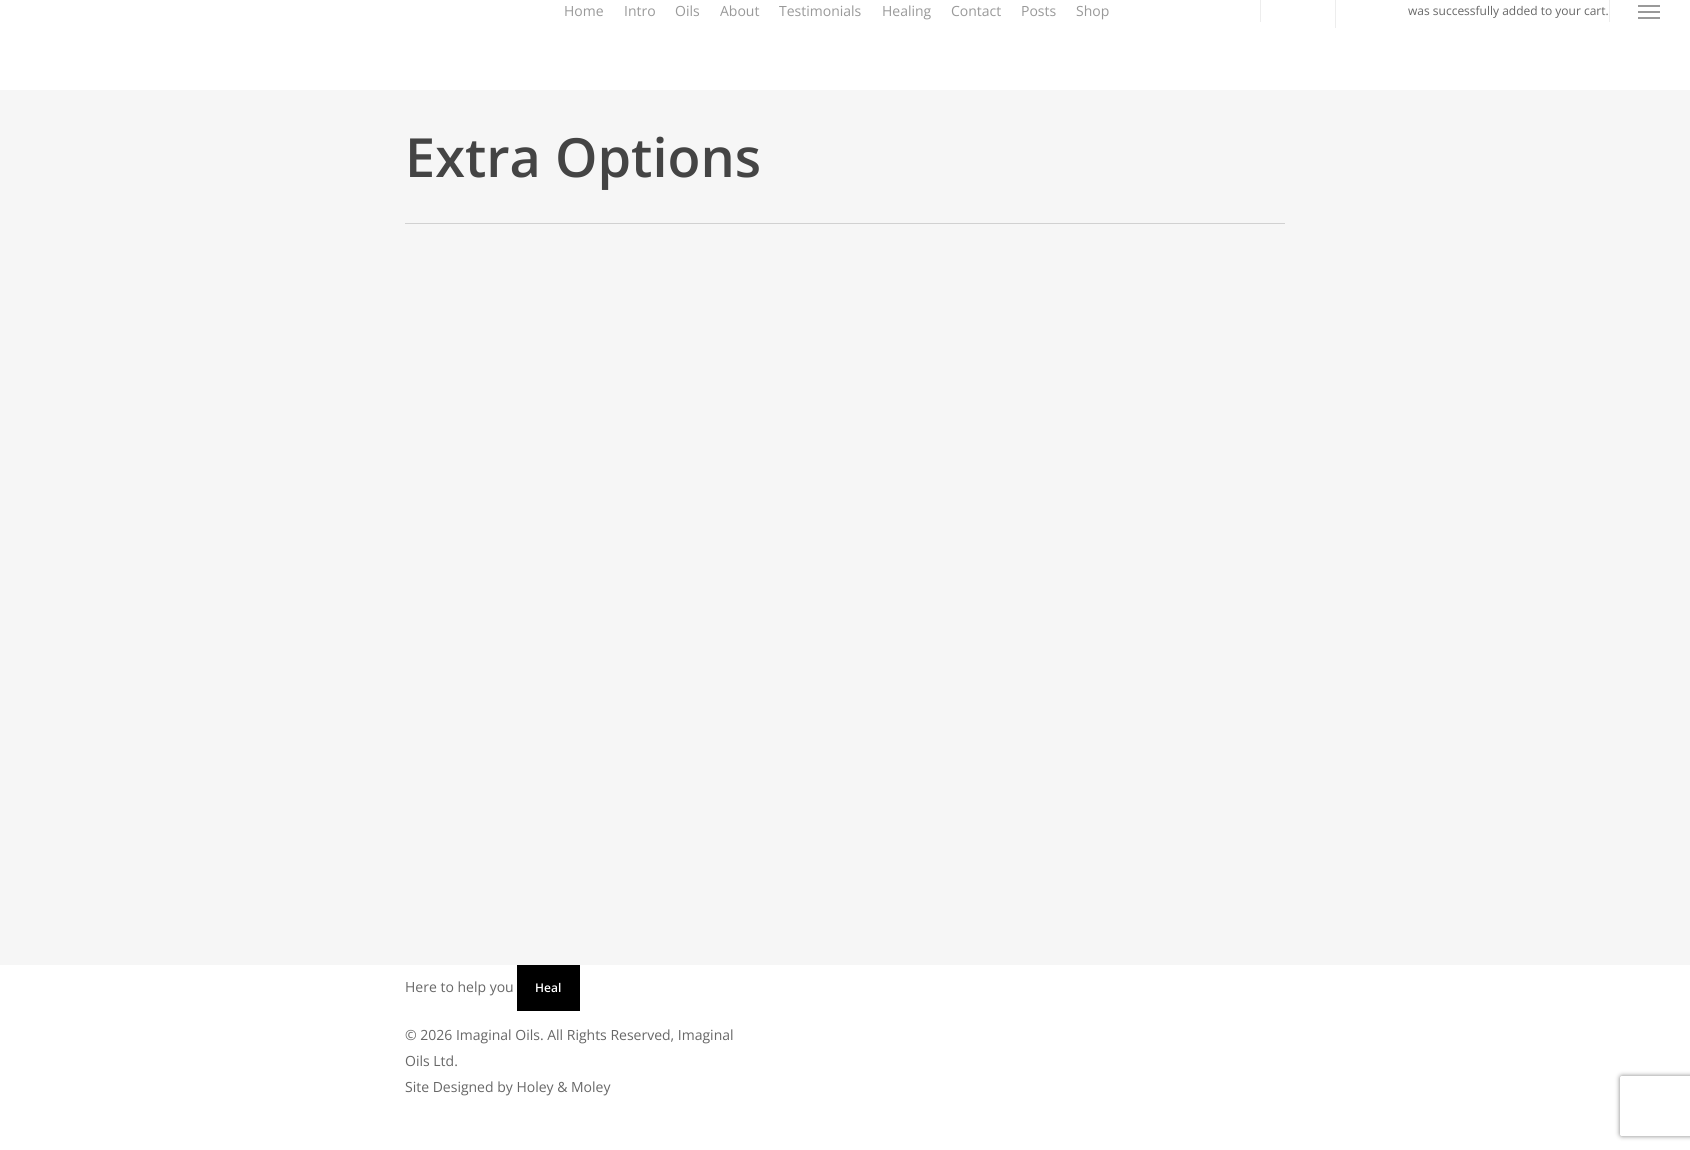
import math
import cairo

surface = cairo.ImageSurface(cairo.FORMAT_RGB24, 1690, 1150)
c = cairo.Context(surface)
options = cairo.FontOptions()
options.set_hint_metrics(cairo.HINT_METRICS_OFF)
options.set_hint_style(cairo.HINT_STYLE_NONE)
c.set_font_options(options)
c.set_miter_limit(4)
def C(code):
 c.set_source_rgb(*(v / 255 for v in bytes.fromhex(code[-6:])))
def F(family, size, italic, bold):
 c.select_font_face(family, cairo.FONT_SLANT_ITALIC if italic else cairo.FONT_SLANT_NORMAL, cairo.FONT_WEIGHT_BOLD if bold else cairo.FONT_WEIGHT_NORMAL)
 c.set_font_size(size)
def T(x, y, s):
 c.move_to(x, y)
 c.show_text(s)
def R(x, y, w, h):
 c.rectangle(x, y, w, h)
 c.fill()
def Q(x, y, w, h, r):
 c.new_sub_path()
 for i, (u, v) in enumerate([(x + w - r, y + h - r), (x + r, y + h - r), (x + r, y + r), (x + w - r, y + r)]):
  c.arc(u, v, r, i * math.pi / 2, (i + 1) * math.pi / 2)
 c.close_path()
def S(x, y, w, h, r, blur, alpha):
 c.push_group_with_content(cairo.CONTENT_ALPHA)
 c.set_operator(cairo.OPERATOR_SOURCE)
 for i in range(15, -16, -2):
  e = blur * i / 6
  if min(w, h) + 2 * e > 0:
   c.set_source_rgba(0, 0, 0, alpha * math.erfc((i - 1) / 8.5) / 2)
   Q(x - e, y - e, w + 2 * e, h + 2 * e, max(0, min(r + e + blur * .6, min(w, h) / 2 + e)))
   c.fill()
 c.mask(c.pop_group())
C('ffffff')
c.paint()
F('Open Sans',14,0,0)
C('999999')
T(564,16,'Home')
T(624,16,'Intro')
T(675,16,'Oils')
T(720,16,'About')
T(779,16,'Testimonials')
T(882,16,'Healing')
T(951,16,'Contact')
T(1021,16,'Posts')
T(1076,16,'Shop')
C('ededed')
R(1260,0,1,22)
R(1335,0,1,28)
F('Open Sans',12,0,0)
C('676767')
T(1408,15,'was successfully added to your cart.')
C('ededed')
R(1609,0,1,22)
C('999999')
R(1638,5,22,2)
R(1638,17,22,2)
R(1638,11,22,2)
C('f6f6f6')
R(0,90,1690,875)
C('d1d1d1')
R(405,223,880,1)
F('Open Sans SemiBold',54,0,0)
C('444444')
T(405,177,'Extra Options')
F('Open Sans',14,0,0)
C('676767')
T(405,992,'Here to help you')
C('000000')
R(517,965,63,46)
F('Open Sans SemiBold',12,0,0)
C('ffffff')
T(535,992,'Heal')
F('Open Sans',14,0,0)
C('676767')
T(405,1040,'© 2026 Imaginal Oils. All Rights Reserved, Imaginal')
T(405,1066,'Oils Ltd.')
T(405,1092,'Site Designed by Holey & Moley')
c.save()
c.set_fill_rule(cairo.FILL_RULE_EVEN_ODD)
c.new_path()
c.move_to(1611,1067)
c.line_to(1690,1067)
c.line_to(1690,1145)
c.line_to(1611,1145)
c.close_path()
c.move_to(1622,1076)
c.line_to(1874,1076)
c.curve_to(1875,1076,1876,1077,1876,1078)
c.line_to(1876,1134)
c.curve_to(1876,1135,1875,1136,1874,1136)
c.line_to(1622,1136)
c.curve_to(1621,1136,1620,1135,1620,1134)
c.line_to(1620,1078)
c.curve_to(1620,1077,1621,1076,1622,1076)
c.close_path()
c.clip()
C('808080')
S(1620,1076,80,60,2,2.5,1)
c.restore()
surface.write_to_png('o.png')
